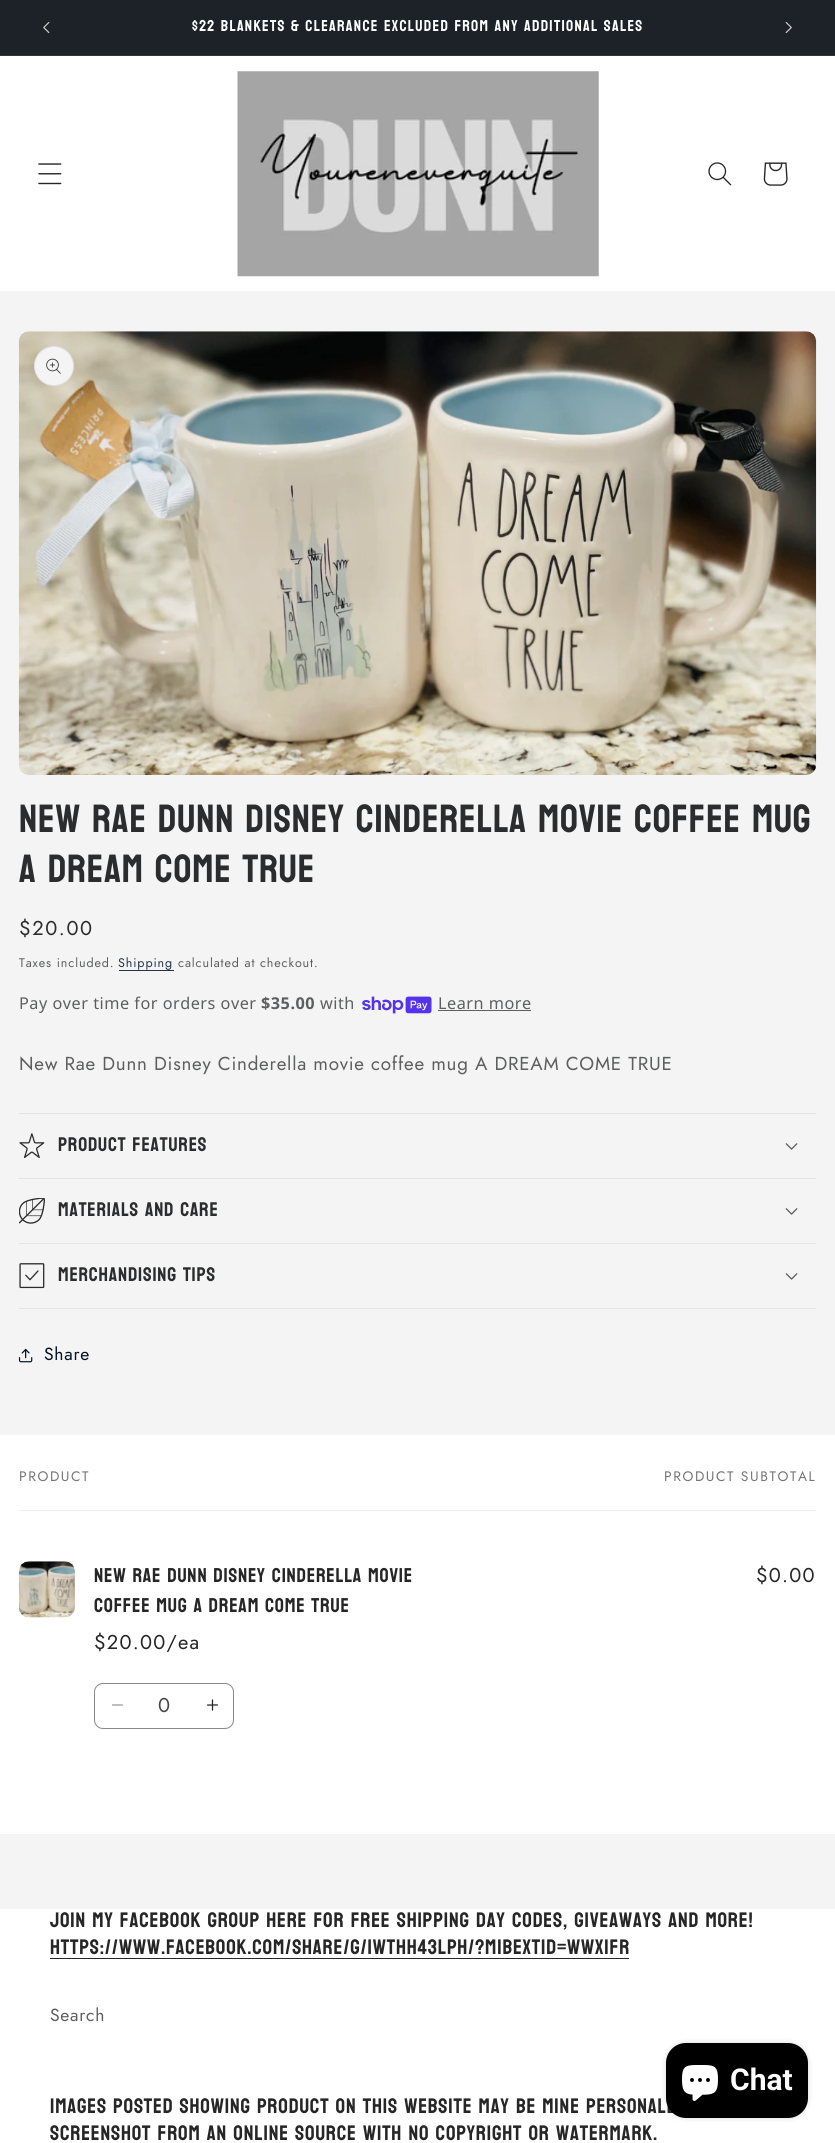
import math
import cairo

surface = cairo.ImageSurface(cairo.FORMAT_RGB24, 835, 2143)
c = cairo.Context(surface)
options = cairo.FontOptions()
options.set_hint_metrics(cairo.HINT_METRICS_OFF)
options.set_hint_style(cairo.HINT_STYLE_NONE)
c.set_font_options(options)
c.set_miter_limit(4)
def C(code):
 c.set_source_rgb(*(v / 255 for v in bytes.fromhex(code[-6:])))
def F(family, size, italic, bold):
 c.select_font_face(family, cairo.FONT_SLANT_ITALIC if italic else cairo.FONT_SLANT_NORMAL, cairo.FONT_WEIGHT_BOLD if bold else cairo.FONT_WEIGHT_NORMAL)
 c.set_font_size(size)
def T(x, y, s):
 c.move_to(x, y)
 c.show_text(s)
def L(x, y, s, letter, word):
 c.move_to(x, y)
 for ch in s:
  c.show_text(ch)
  c.rel_move_to(letter + word * (ch == ' '), 0)
def R(x, y, w, h):
 c.rectangle(x, y, w, h)
 c.fill()
def Q(x, y, w, h, r):
 c.new_sub_path()
 for i, (u, v) in enumerate([(x + w - r, y + h - r), (x + r, y + h - r), (x + r, y + r), (x + w - r, y + r)]):
  c.arc(u, v, r, i * math.pi / 2, (i + 1) * math.pi / 2)
 c.close_path()
def S(x, y, w, h, r, blur, alpha):
 c.push_group_with_content(cairo.CONTENT_ALPHA)
 c.set_operator(cairo.OPERATOR_SOURCE)
 for i in range(15, -16, -2):
  e = blur * i / 6
  if min(w, h) + 2 * e > 0:
   c.set_source_rgba(0, 0, 0, alpha * math.erfc((i - 1) / 8.5) / 2)
   Q(x - e, y - e, w + 2 * e, h + 2 * e, max(0, min(r + e + blur * .6, min(w, h) / 2 + e)))
   c.fill()
 c.mask(c.pop_group())
def I(path, x, y, w, h):
 c.save()
 c.set_source_surface(cairo.ImageSurface.create_from_png(path), x, y)
 c.rectangle(x, y, w, h)
 c.fill()
 c.restore()
C('f4f4f4')
c.paint()
C('1c2228')
R(0,0,835,55)
C('2e3439')
R(0,55,835,1)
I('1.png',43,21,7,13)
F('Bayon',15.75,0,0)
C('ffffff')
L(192,31,'$22 Blankets & Clearance excluded from ANY additional sales',1.25,0)
I('2.png',785,21,7,13)
R(0,56,835,235)
I('3.png',38,163,24,22)
I('4.png',237,71,362,206)
I('5.png',708,162,24,24)
I('6.png',763,162,25,24)
I('7.png',18,331,799,444)
C('f4f4f4')
c.arc(54,366,20,0,2 * math.pi)
c.fill()
c.arc(54,366,19.5,0,2 * math.pi)
c.set_source_rgba(0.169,0.173,0.176,0.1)
c.set_line_width(1)
c.stroke()
I('8.png',46,358,15,16)
F('Bayon',39.4,0,0)
C('2b2c2d')
L(19,832,'New Rae Dunn Disney Cinderella movie coffee mug',.8,0)
L(19,882,'A DREAM COME TRUE',.8,0)
F('Jost',20,0,0)
L(19,935,'$20.00',1.6,0)
F('Jost',12.5,0,0)
C('5d5e5f')
L(19,967,'Taxes included.',.9,0)
C('253347')
L(118,967,'Shipping',.9,0)
R(119,970,55,1)
C('5d5e5f')
L(178,967,'calculated at checkout.',.9,0)
F('Noto Sans',16.25,0,0)
L(19,1009,'Pay over time for orders over',.5,0)
F('Noto Sans',16.25,0,1)
L(261,1009,'$35.00',.5,0)
F('Noto Sans',16.25,0,0)
L(320,1009,'with',.5,0)
I('9.png',362,996,70,18)
L(438,1009,'Learn more',.5,0)
R(438,1010,93,1)
F('Jost',18.75,0,0)
L(19,1070,'New Rae Dunn Disney Cinderella movie coffee mug A DREAM COME TRUE',.75,0)
C('e4e4e4')
R(19,1113,797,1)
R(19,1178,797,1)
I('10.png',19,1133,26,26)
F('Bayon',19.75,0,0)
C('2b2c2d')
L(58,1151,'Product features',.8,0)
I('11.png',785,1143,13,7)
C('e4e4e4')
R(19,1243,797,1)
I('12.png',19,1198,26,26)
C('2b2c2d')
L(58,1216,'Materials and care',.8,0)
I('11.png',785,1208,13,7)
C('e4e4e4')
R(19,1308,797,1)
I('13.png',19,1263,26,26)
C('2b2c2d')
L(58,1281,'Merchandising tips',.8,0)
I('11.png',785,1273,13,7)
I('14.png',18,1348,15,15)
F('Jost',17.5,0,0)
C('001128')
L(44,1360,'Share',.75,0)
C('ffffff')
R(0,1435,835,399)
C('eeeeee')
R(19,1510,797,1)
F('Jost',13.75,0,0)
C('757575')
L(19,1481,'PRODUCT',1.6,0)
L(664,1481,'PRODUCT SUBTOTAL',1.6,0)
I('15.png',18,1561,57,57)
F('Bayon',20,0,0)
C('262626')
L(94,1582,'New Rae Dunn Disney Cinderella movie',.75,0)
L(94,1612,'coffee mug A DREAM COME TRUE',.75,0)
F('Jost',20,0,0)
L(94,1649,'$20.00/ea',1.25,0)
L(756,1582,'$0.00',1.25,0)
I('16.png',112,1704,11,2)
I('17.png',207,1699,12,12)
Q(94.5,1683.5,139,45,8.5)
C('888888')
c.stroke()
C('474747')
T(158,1712,'0')
C('ffffff')
R(0,1909,835,234)
F('Bayon',21,0,0)
C('262626')
L(50,1927,'Join my Facebook group here for Free Shipping day codes, giveaways and more!',.8,0)
L(50,1954,'https://www.facebook.com/share/g/1WtHH43LPH/?mibextid=wwXIfr',.8,0)
R(50,1958,579,1)
F('Jost',17.5,0,0)
C('5d5e5f')
L(50,2021,'Search',.75,0)
F('Bayon',21,0,0)
C('262626')
L(50,2113,'IMAGES POSTED SHOWING PRODUCT ON THIS WEBSITE MAY BE MINE PERSONALL',.8,0)
L(50,2140,'SCREENSHOT FROM AN ONLINE SOURCE WITH NO COPYRIGHT OR WATERMARK.',.8,0)
C('000000')
S(666,2043,142,75,20,3,.15)
C('000000')
Q(666,2043,142,75,20)
c.fill()
I('18.png',682,2065,36,36)
F('Roboto',30,0,1)
C('ffffff')
T(730,2090,'Chat')
surface.write_to_png('o.png')
